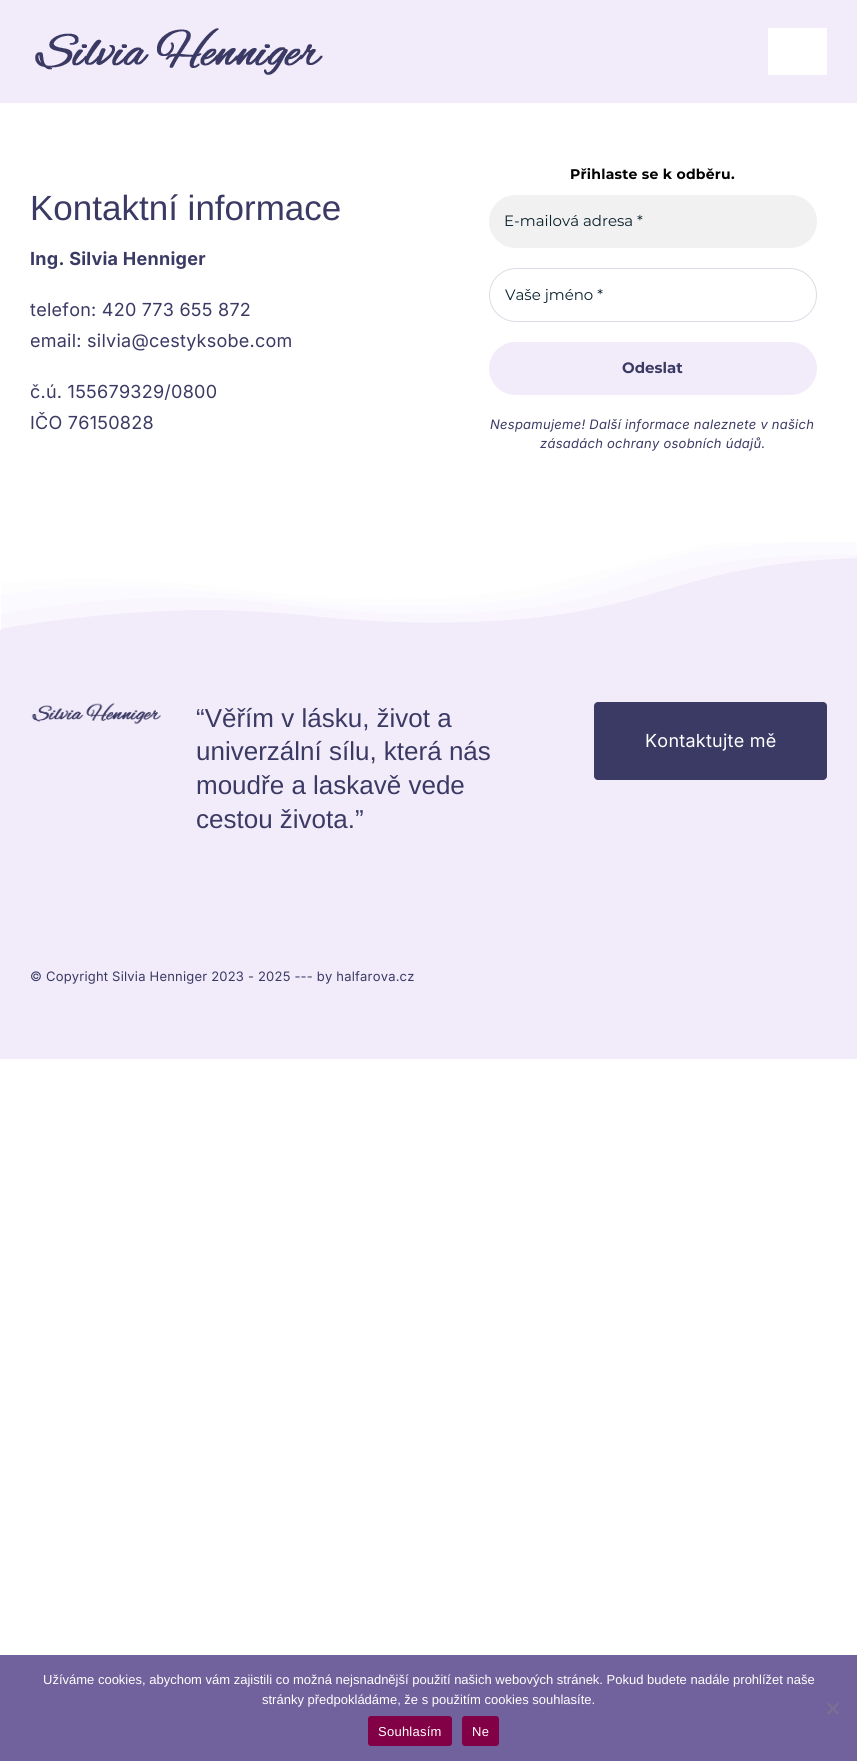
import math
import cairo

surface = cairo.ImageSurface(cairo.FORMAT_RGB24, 857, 1761)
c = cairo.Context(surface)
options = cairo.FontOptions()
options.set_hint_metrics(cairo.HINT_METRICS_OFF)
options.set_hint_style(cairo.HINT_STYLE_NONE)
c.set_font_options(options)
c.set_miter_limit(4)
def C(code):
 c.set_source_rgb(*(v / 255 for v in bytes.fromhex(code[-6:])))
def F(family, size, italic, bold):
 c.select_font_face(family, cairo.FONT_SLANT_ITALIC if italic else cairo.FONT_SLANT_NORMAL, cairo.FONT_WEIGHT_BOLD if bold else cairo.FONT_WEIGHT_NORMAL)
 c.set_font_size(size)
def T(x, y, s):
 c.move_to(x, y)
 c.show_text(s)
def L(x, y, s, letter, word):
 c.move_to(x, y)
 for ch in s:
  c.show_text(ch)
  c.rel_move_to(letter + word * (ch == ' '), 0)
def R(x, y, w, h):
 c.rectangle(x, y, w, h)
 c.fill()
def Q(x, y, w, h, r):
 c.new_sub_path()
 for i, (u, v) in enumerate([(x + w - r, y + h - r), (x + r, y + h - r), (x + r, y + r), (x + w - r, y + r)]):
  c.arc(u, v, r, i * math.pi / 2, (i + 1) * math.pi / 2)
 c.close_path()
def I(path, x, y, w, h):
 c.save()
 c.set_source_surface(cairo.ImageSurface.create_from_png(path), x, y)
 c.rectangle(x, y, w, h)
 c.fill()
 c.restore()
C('ffffff')
c.paint()
C('f2ecfa')
R(0,0,857,103)
I('1.png',35,28,288,47)
C('ffffff')
R(768,28,59,47)
F('Liberation Sans',35,0,0)
C('3b3a64')
T(30,220,'Kontaktní informace')
F('Inter',18,0,1)
L(30,265,'Ing. Silvia Henniger',.25,0)
F('Inter',18,0,0)
L(30,316,'telefon: 420 773 655 872',.25,0)
L(30,347,'email: silvia@cestyksobe.com',.25,0)
L(30,398,'č.ú. 155679329/0800',.25,0)
L(30,429,'IČO 76150828',.25,0)
F('Montserrat',14,0,1)
C('000000')
L(570,179,'Přihlaste se k odběru.',.25,0)
C('f1f1f1')
Q(489,195,328,53,26.5)
c.fill()
F('Montserrat',15,0,0)
C('09202c')
T(504,226,'E-mailová adresa *')
Q(489.5,268.5,327,53,26.5)
C('dcdce6')
c.set_line_width(1)
c.stroke()
C('09202c')
T(505,300,'Vaše jméno *')
C('f2ecfa')
Q(489,342,328,53,26.5)
c.fill()
F('Montserrat',15,0,1)
C('3b3a64')
T(622,373,'Odeslat')
F('Inter',13,1,0)
L(490,429,'Nespamujeme! Další informace naleznete v našich',.25,0)
L(540,448,'zásadách ochrany osobních údajů.',.25,0)
I('2.png',1,542,856,88)
C('f2ecfa')
R(0,630,857,429)
I('3.png',31,703,131,22)
F('Liberation Sans',26,0,0)
C('3b3a64')
T(196,727,'“Věřím v lásku, život a')
T(196,760,'univerzální sílu, která nás')
T(196,794,'moudře a laskavě vede')
T(196,828,'cestou života.”')
Q(594,702,233,78,4)
c.fill()
F('Inter',18,0,0)
C('ffffff')
L(645,747,'Kontaktujte mě',.25,0)
F('Inter',13,0,0)
C('3b3a64')
L(30,981,'© Copyright Silvia Henniger 2023 - 2025 --- by halfarova.cz',.2,0)
C('71629d')
R(0,1655,857,106)
F('Liberation Sans',13,0,0)
C('ffffff')
T(43,1684,'Užíváme cookies, abychom vám zajistili co možná nejsnadnější použití našich webových stránek. Pokud budete nadále prohlížet naše')
T(262,1704,'stránky předpokládáme, že s použitím cookies souhlasíte.')
C('79718f')
c.new_path()
c.move_to(837.5,1702.5)
c.line_to(839,1704)
c.line_to(828.5,1714.5)
c.line_to(827,1713)
c.close_path()
c.fill()
c.new_path()
c.move_to(827,1704)
c.line_to(828.5,1702.5)
c.line_to(839,1713)
c.line_to(837.5,1714.5)
c.close_path()
c.fill()
C('820045')
Q(368,1716,84,30,3)
c.fill()
C('ffffff')
L(378,1736,'Souhlasím',.25,0)
C('820045')
Q(462,1716,37,30,3)
c.fill()
C('ffffff')
L(472,1736,'Ne',.25,0)
surface.write_to_png('o.png')
